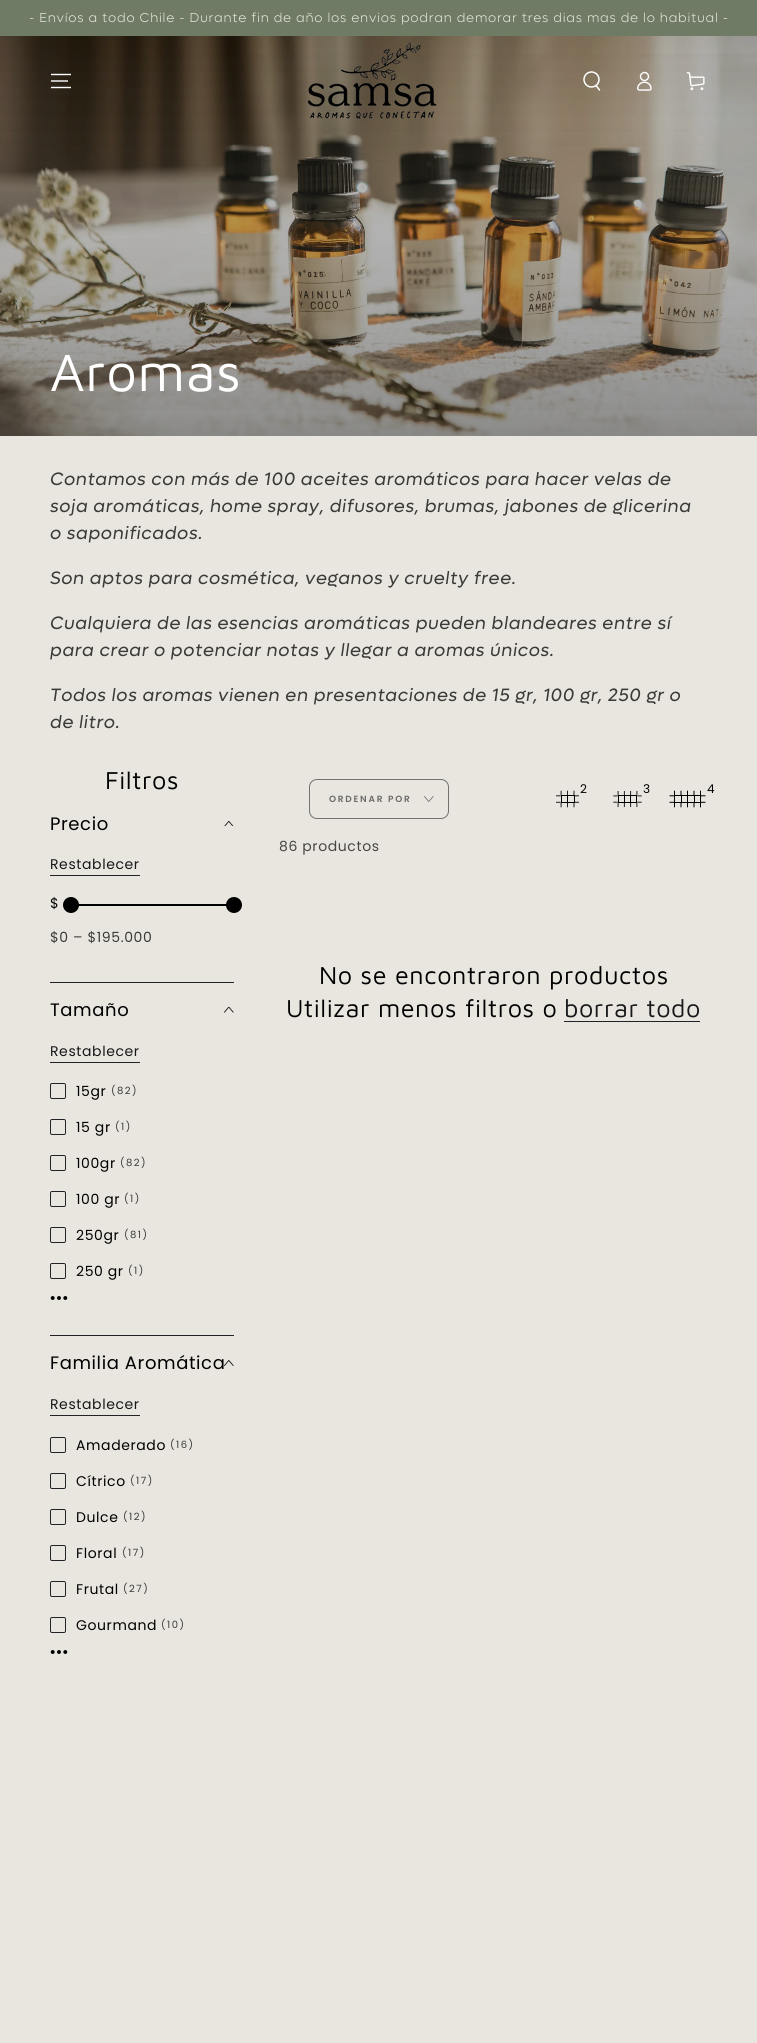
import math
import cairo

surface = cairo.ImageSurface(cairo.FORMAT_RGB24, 757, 2043)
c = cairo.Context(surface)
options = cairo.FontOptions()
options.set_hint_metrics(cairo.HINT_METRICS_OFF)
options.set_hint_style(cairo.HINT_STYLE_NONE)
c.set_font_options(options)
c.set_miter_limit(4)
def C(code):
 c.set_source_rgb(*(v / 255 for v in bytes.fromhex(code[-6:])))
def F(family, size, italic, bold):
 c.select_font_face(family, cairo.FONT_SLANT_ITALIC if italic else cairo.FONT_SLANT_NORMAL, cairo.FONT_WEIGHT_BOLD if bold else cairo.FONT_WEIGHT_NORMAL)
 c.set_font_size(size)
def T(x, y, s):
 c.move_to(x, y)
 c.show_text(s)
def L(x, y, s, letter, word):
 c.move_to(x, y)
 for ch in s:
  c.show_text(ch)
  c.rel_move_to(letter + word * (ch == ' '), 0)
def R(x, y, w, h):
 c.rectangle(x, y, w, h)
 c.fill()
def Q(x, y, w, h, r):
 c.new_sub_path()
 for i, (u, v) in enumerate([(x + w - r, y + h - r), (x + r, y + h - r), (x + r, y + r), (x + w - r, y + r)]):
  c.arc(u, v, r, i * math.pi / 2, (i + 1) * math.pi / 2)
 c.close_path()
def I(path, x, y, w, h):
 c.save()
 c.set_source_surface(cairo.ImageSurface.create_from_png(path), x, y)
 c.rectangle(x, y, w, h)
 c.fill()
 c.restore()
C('e8e6df')
c.paint()
C('6f7b65')
R(0,0,757,36)
F('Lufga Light',13,0,0)
C('e8e6df')
L(29,22,'- Envíos a todo Chile - Durante fin de año los envios podran demorar tres dias mas de lo habitual -',.78,0)
I('4.png',0,36,757,400)
gradient = cairo.LinearGradient(379,436,379,36)
gradient.add_color_stop_rgba(0,0.212,0.212,0.212,0)
gradient.add_color_stop_rgba(.6,0.212,0.212,0.212,.2)
gradient.add_color_stop_rgba(1,0.016,0.016,0.016,.32)
c.set_source(gradient)
R(0,36,757,374)
gradient = cairo.LinearGradient(379,36,379,436)
gradient.add_color_stop_rgba(0,0.212,0.212,0.212,0)
gradient.add_color_stop_rgba(.4,0.212,0.212,0.212,.2)
gradient.add_color_stop_rgba(1,0.016,0.016,0.016,.46)
c.set_source(gradient)
R(0,53,757,383)
c.new_path()
c.move_to(51,87.5)
c.line_to(71,87.5)
c.move_to(51,81)
c.line_to(68,81)
c.move_to(51,74.5)
c.line_to(71,74.5)
C('ffffff')
c.set_line_width(1.4)
c.stroke()
I('1.png',307,42,130,77)
c.arc(591.5,79.5,7.5,0,2 * math.pi)
c.set_line_width(1.5)
c.stroke()
c.new_path()
c.move_to(596,85.5)
c.line_to(599.5,90)
c.set_line_cap(cairo.LINE_CAP_ROUND)
c.stroke()
I('2.png',637,71,15,20)
I('3.png',686,71,19,20)
F('Maven Pro',54,0,0)
L(50,391,'Aromas',.55,0)
F('Lufga',18,1,0)
C('3a3a38')
L(50,485,'Contamos con más de 100 aceites aromáticos para hacer velas de',.6,0)
L(50,512,'soja aromáticas, home spray, difusores, brumas, jabones de glicerina',.6,0)
L(50,539,'o saponificados.',.6,0)
L(50,584,'Son aptos para cosmética, veganos y cruelty free.',.6,0)
L(50,629,'Cualquiera de las esencias aromáticas pueden blandeares entre sí',.6,0)
L(50,656,'para crear o potenciar notas y llegar a aromas únicos.',.6,0)
L(50,701,'Todos los aromas vienen en presentaciones de 15 gr, 100 gr, 250 gr o',.6,0)
L(50,728,'de litro.',.6,0)
F('Maven Pro',25.25,0,0)
C('000000')
L(105,789,'Filtros',.55,0)
F('Poppins',18,0,0)
L(50,830,'Precio',.6,0)
I('5.png',224,820,10,6)
F('Poppins',14,0,0)
C('18181b')
L(50,869,'Restablecer',.6,0)
C('212326')
R(50,875,90,1)
C('000000')
L(50,908,'$',.6,0)
R(71,904,163,2)
c.new_path()
c.arc(71,905,8,0,2 * math.pi)
c.fill()
c.arc(234,905,8,0,2 * math.pi)
c.fill()
C('3a3a38')
L(50,942,'$0 – $195.000',.6,0)
C('212326')
R(50,982,184,1)
F('Poppins',18,0,0)
C('000000')
L(50,1016,'Tamaño',.6,0)
I('6.png',224,1007,10,6)
F('Poppins',14,0,0)
C('18181b')
L(50,1056,'Restablecer',.6,0)
C('212326')
R(50,1062,90,1)
Q(50.5,1083.5,15,15,1.5)
c.set_line_width(1)
c.set_line_cap(cairo.LINE_CAP_BUTT)
c.stroke()
C('000000')
L(76,1096,'15gr',.6,0)
F('Poppins',10,0,0)
C('3a3a38')
L(111,1094,'(82)',1.5,0)
Q(50.5,1119.5,15,15,1.5)
C('212326')
c.stroke()
F('Poppins',14,0,0)
C('000000')
L(76,1132,'15 gr',.6,0)
F('Poppins',10,0,0)
C('3a3a38')
L(115,1130,'(1)',1.5,0)
Q(50.5,1155.5,15,15,1.5)
C('212326')
c.stroke()
F('Poppins',14,0,0)
C('000000')
L(76,1168,'100gr',.6,0)
F('Poppins',10,0,0)
C('3a3a38')
L(120,1166,'(82)',1.5,0)
Q(50.5,1191.5,15,15,1.5)
C('212326')
c.stroke()
F('Poppins',14,0,0)
C('000000')
L(76,1204,'100 gr',.6,0)
F('Poppins',10,0,0)
C('3a3a38')
L(124,1202,'(1)',1.5,0)
Q(50.5,1227.5,15,15,1.5)
C('212326')
c.stroke()
F('Poppins',14,0,0)
C('000000')
L(76,1240,'250gr',.6,0)
F('Poppins',10,0,0)
C('3a3a38')
L(124,1238,'(81)',1.5,0)
Q(50.5,1263.5,15,15,1.5)
C('212326')
c.stroke()
F('Poppins',14,0,0)
C('000000')
L(76,1276,'250 gr',.6,0)
F('Poppins',10,0,0)
C('3a3a38')
L(128,1274,'(1)',1.5,0)
I('7.png',50,1296,18,4)
C('212326')
R(50,1335,184,1)
F('Poppins',18,0,0)
C('000000')
L(50,1369,'Familia Aromática',.6,0)
I('8.png',224,1360,10,6)
F('Poppins',14,0,0)
C('18181b')
L(50,1409,'Restablecer',.6,0)
C('212326')
R(50,1415,90,1)
Q(50.5,1437.5,15,15,1.5)
c.stroke()
C('000000')
L(76,1450,'Amaderado',.6,0)
F('Poppins',10,0,0)
C('3a3a38')
L(170,1448,'(16)',1.5,0)
Q(50.5,1473.5,15,15,1.5)
C('212326')
c.stroke()
F('Poppins',14,0,0)
C('000000')
L(76,1486,'Cítrico',.6,0)
F('Poppins',10,0,0)
C('3a3a38')
L(130,1484,'(17)',1.5,0)
Q(50.5,1509.5,15,15,1.5)
C('212326')
c.stroke()
F('Poppins',14,0,0)
C('000000')
L(76,1522,'Dulce',.6,0)
F('Poppins',10,0,0)
C('3a3a38')
L(123,1520,'(12)',1.5,0)
Q(50.5,1545.5,15,15,1.5)
C('212326')
c.stroke()
F('Poppins',14,0,0)
C('000000')
L(76,1558,'Floral',.6,0)
F('Poppins',10,0,0)
C('3a3a38')
L(122,1556,'(17)',1.5,0)
Q(50.5,1581.5,15,15,1.5)
C('212326')
c.stroke()
F('Poppins',14,0,0)
C('000000')
L(76,1594,'Frutal',.6,0)
F('Poppins',10,0,0)
C('3a3a38')
L(123,1592,'(27)',1.5,0)
Q(50.5,1617.5,15,15,1.5)
C('212326')
c.stroke()
F('Poppins',14,0,0)
C('000000')
L(76,1630,'Gourmand',.6,0)
F('Poppins',10,0,0)
C('3a3a38')
L(161,1628,'(10)',1.5,0)
I('7.png',50,1650,18,4)
F('Poppins',12,0,0)
C('000000')
T(580,793,'2')
I('9.png',556,790,23,18)
T(643,793,'3')
I('10.png',613,790,29,18)
T(707,793,'4')
I('11.png',669,790,37,18)
Q(309.5,779.5,139,39,7.5)
C('717170')
c.stroke()
F('Poppins SemiBold',9,0,0)
C('6b6a69')
L(329,802,'ORDENAR POR',1.75,0)
I('12.png',424,796,10,6)
F('Poppins',14,0,0)
C('464543')
L(279,851,'86 productos',.6,0)
F('Maven Pro',25.25,0,0)
C('000000')
L(319,984,'No se encontraron productos',.55,0)
L(286,1017,'Utilizar menos filtros o',.55,0)
C('18181b')
L(564,1017,'borrar todo',.55,0)
C('212326')
R(564,1021,136,1)
surface.write_to_png('o.png')
